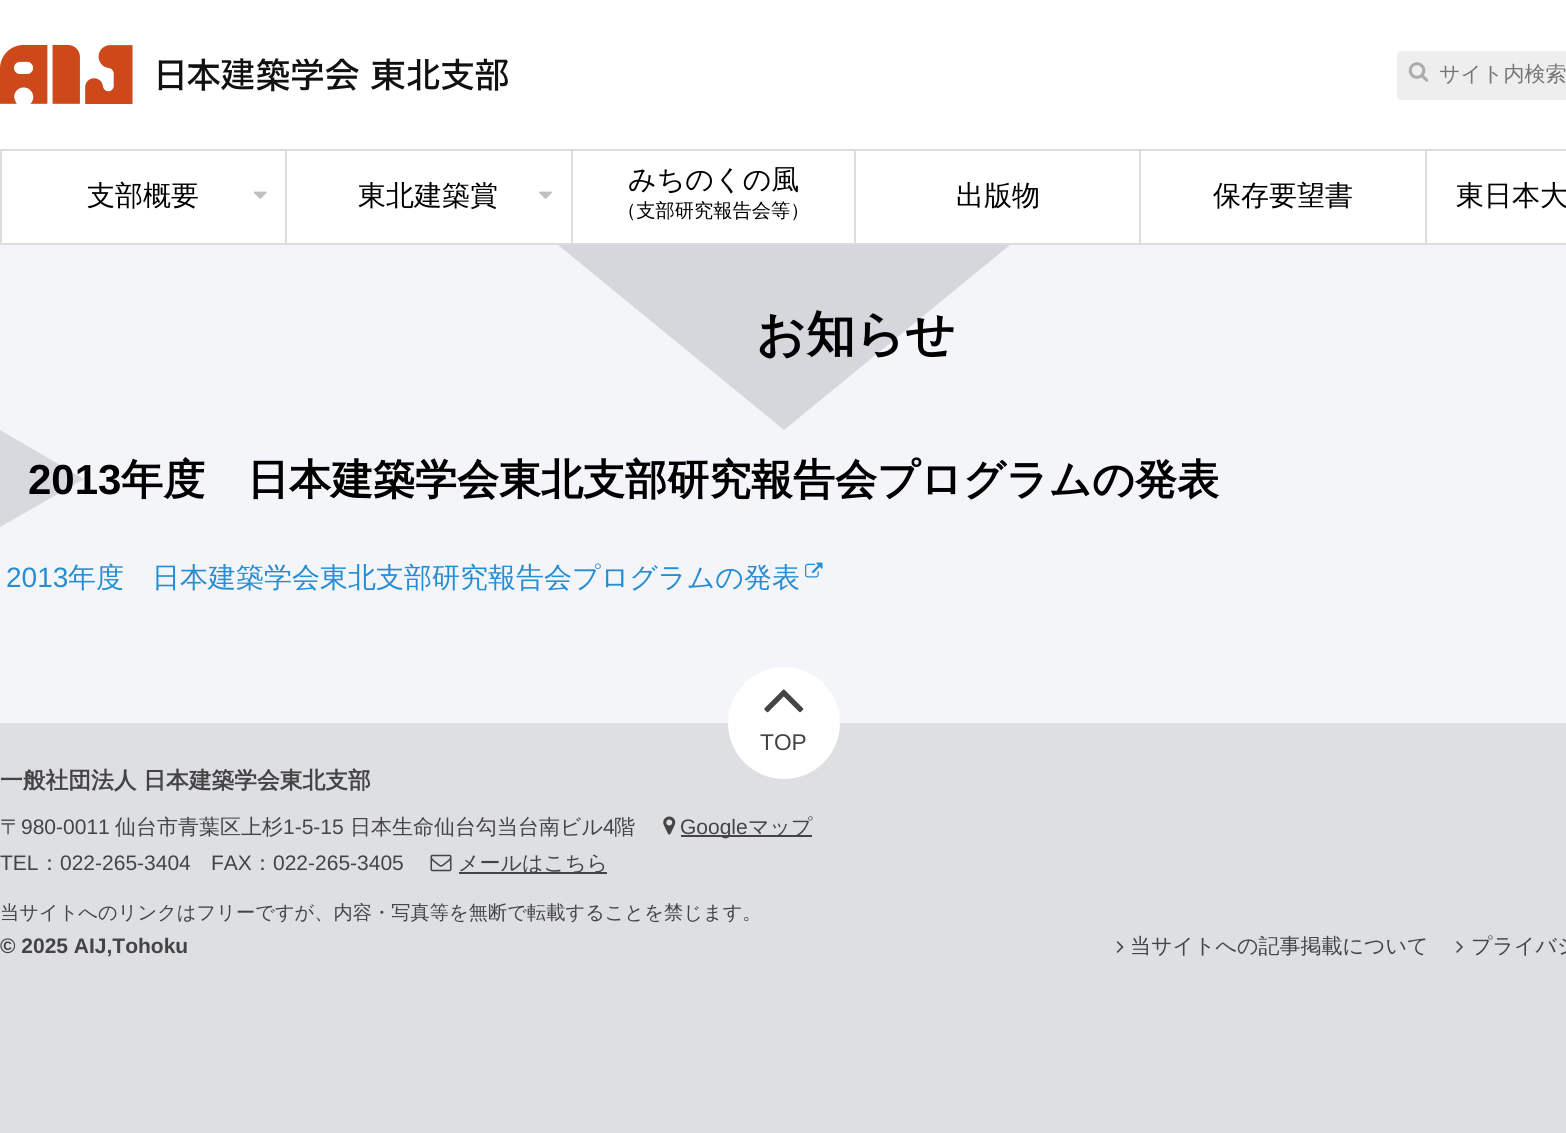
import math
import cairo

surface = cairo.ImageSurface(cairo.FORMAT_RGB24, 1566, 1133)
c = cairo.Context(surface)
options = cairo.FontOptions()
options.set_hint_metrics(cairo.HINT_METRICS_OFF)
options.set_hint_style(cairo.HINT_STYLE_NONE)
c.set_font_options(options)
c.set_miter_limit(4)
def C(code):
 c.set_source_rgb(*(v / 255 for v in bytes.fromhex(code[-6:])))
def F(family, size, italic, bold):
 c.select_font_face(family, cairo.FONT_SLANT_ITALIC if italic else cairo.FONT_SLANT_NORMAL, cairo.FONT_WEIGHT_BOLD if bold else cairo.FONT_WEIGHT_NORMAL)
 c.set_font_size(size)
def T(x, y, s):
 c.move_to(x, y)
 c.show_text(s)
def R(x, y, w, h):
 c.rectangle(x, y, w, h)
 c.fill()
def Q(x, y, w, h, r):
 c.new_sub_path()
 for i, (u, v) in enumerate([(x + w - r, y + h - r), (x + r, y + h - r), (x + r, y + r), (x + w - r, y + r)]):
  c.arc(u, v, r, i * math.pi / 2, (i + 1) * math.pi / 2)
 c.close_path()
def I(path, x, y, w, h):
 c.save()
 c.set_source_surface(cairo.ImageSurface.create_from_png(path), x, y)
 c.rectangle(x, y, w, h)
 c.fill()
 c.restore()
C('dddfe3')
c.paint()
C('ffffff')
R(0,0,1566,243)
I('1.png',0,44,508,60)
C('eeeeee')
Q(1397,51,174,49,5)
c.fill()
I('2.png',1408,62,21,20)
F('WenQuanYi Zen Hei Medium',21,0,0)
C('757575')
T(1439,81,'サイト内検索')
C('dddddd')
R(0,149,1566,2)
R(0,243,1566,2)
R(285,151,2,92)
R(0,151,2,92)
F('WenQuanYi Zen Hei Medium',28,0,0)
C('000000')
T(87,205,'支部概要')
I('3.png',253,191,14,8)
C('dddddd')
R(571,151,2,92)
C('000000')
T(358,205,'東北建築賞')
I('4.png',539,191,13,8)
C('dddddd')
R(854,151,2,92)
C('000000')
T(628,189,'みちのくの風')
F('WenQuanYi Zen Hei Medium',19.25,0,0)
T(617,217,'（支部研究報告会等）')
C('dddddd')
R(1139,151,2,92)
F('WenQuanYi Zen Hei Medium',28,0,0)
C('000000')
T(956,205,'出版物')
C('dddddd')
R(1425,151,2,92)
C('000000')
T(1213,205,'保存要望書')
T(1456,205,'東日本大')
C('f4f5f8')
R(0,245,1566,478)
c.save()
c.rectangle(558,245,452,186)
c.clip()
C('d5d7dd')
c.set_fill_rule(cairo.FILL_RULE_EVEN_ODD)
c.new_path()
c.move_to(784,430)
c.line_to(486,186)
c.line_to(1082,186)
c.close_path()
c.fill()
c.restore()
F('WenQuanYi Zen Hei',49,0,1)
C('000000')
T(756,351,'お知らせ')
C('d7d9de')
c.set_fill_rule(cairo.FILL_RULE_EVEN_ODD)
c.new_path()
c.move_to(84,479)
c.line_to(0,527)
c.line_to(0,430)
c.close_path()
c.fill()
F('Liberation Sans',42,0,1)
C('000000')
T(28,494,'2013')
F('WenQuanYi Zen Hei',42,0,1)
T(121,494,'年度　日本建築学会東北支部研究報告会プログラムの発表')
F('Liberation Sans',28,0,0)
C('278dd2')
T(6,587,'2013')
F('WenQuanYi Zen Hei Medium',28,0,0)
T(68,587,'年度　日本建築学会東北支部研究報告会プログラムの発表')
I('5.png',805,562,18,16)
C('ffffff')
c.arc(784,723,56,0,2 * math.pi)
c.fill()
I('6.png',764,689,40,24)
F('Liberation Sans',22.75,0,0)
C('444444')
T(760,750,'TOP')
F('WenQuanYi Zen Hei',22.75,0,1)
T(0,788,'一般社団法人 日本建築学会東北支部')
F('WenQuanYi Zen Hei Medium',21,0,0)
T(0,834,'〒')
F('Liberation Sans',21,0,0)
T(21,834,'980-0011')
F('WenQuanYi Zen Hei Medium',21,0,0)
T(115,834,'仙台市青葉区上杉')
F('Liberation Sans',21,0,0)
T(283,834,'1-5-15')
F('WenQuanYi Zen Hei Medium',21,0,0)
T(350,834,'日本生命仙台勾当台南ビル')
F('Liberation Sans',21,0,0)
T(603,834,'4')
F('WenQuanYi Zen Hei Medium',21,0,0)
T(614,834,'階')
I('7.png',663,816,13,19)
R(681,835,131,2)
F('Liberation Sans',21,0,0)
T(680,834,'Google')
F('WenQuanYi Zen Hei Medium',21,0,0)
T(748,834,'マップ')
F('Liberation Sans',21,0,0)
T(0,870,'TEL')
F('WenQuanYi Zen Hei Medium',21,0,0)
T(39,870,'：')
F('Liberation Sans',21,0,0)
T(60,870,'022-265-3404')
T(211,870,'FAX')
F('WenQuanYi Zen Hei Medium',21,0,0)
T(252,870,'：')
F('Liberation Sans',21,0,0)
T(273,870,'022-265-3405')
I('8.png',430,854,22,18)
R(459,872,148,2)
F('WenQuanYi Zen Hei Medium',21,0,0)
T(458,870,'メールはこちら')
F('WenQuanYi Zen Hei Medium',19.25,0,0)
T(0,919,'当サイトへのリンクはフリーですが、内容・写真等を無断で転載することを禁じます。')
F('Liberation Sans',21,0,1)
T(0,953,'© 2025 AIJ,Tohoku')
I('9.png',1116,941,8,12)
F('WenQuanYi Zen Hei Medium',21,0,0)
T(1130,953,'当サイトへの記事掲載について')
I('10.png',1456,941,7,12)
T(1471,953,'プライバシ')
surface.write_to_png('o.png')
